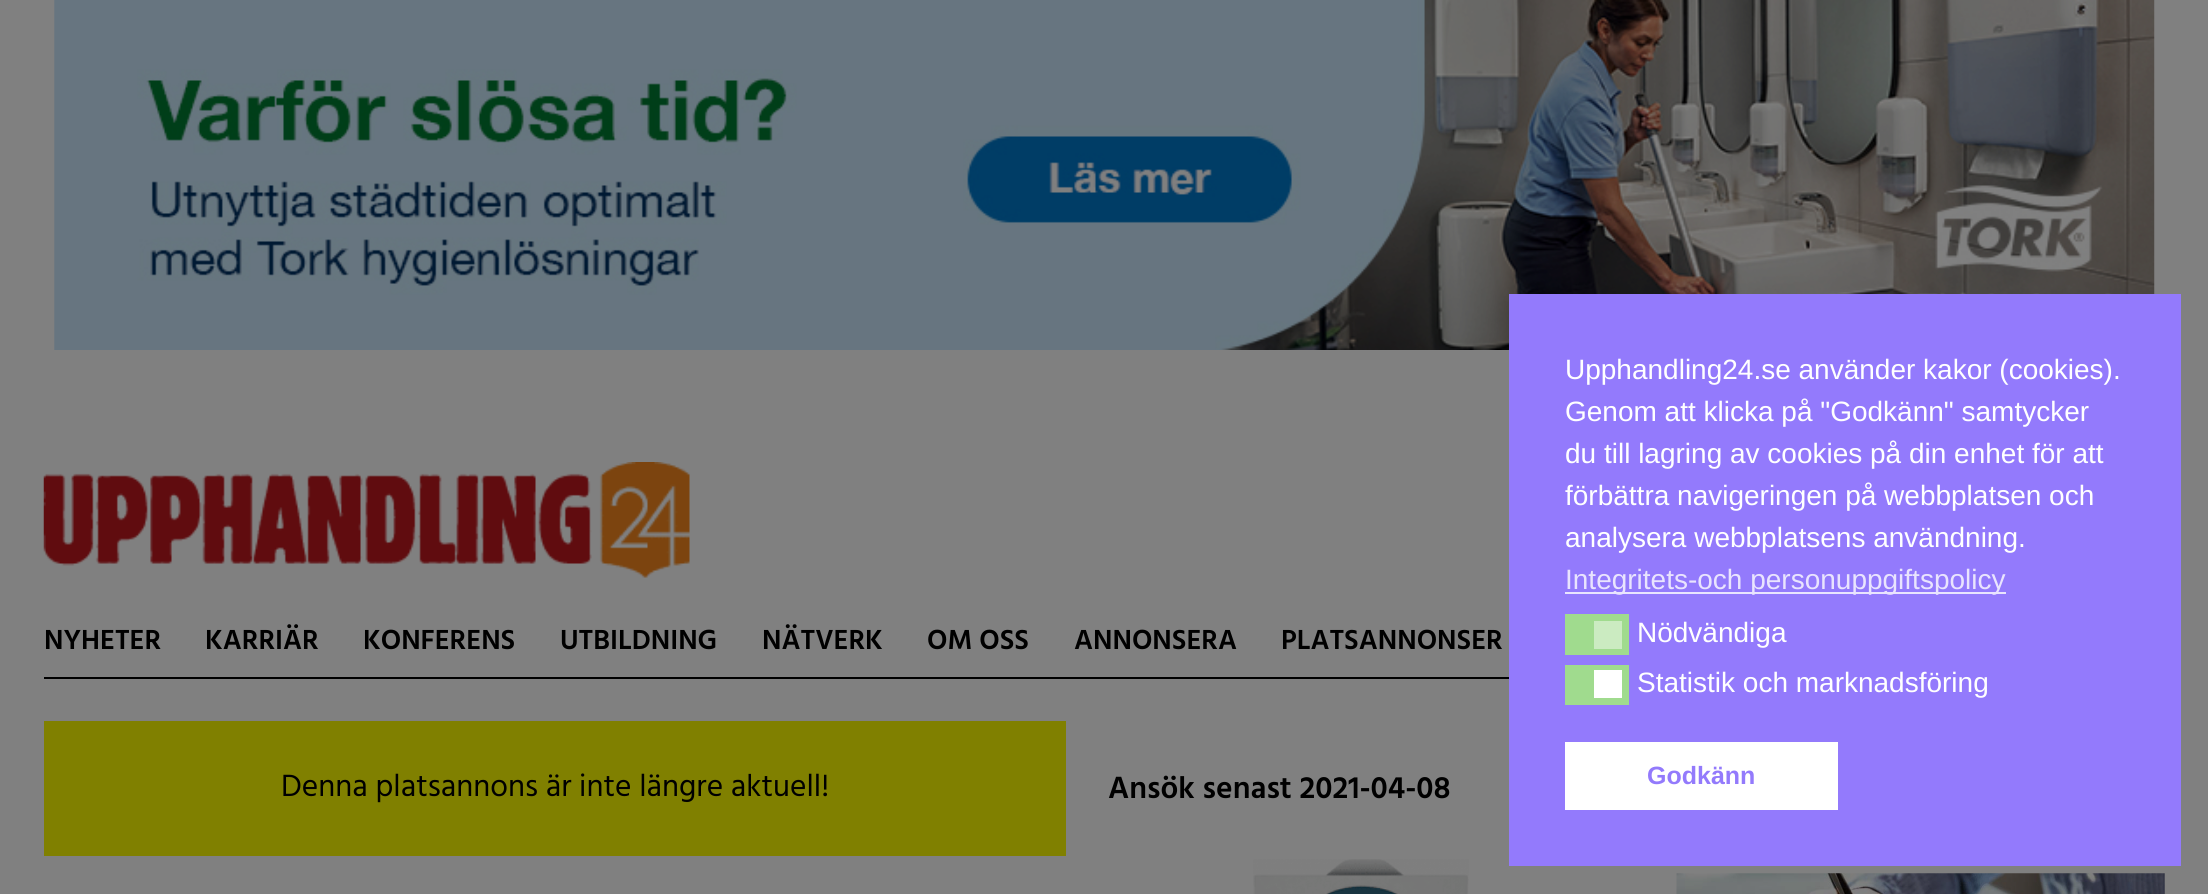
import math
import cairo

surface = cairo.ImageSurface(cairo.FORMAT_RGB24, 2208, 894)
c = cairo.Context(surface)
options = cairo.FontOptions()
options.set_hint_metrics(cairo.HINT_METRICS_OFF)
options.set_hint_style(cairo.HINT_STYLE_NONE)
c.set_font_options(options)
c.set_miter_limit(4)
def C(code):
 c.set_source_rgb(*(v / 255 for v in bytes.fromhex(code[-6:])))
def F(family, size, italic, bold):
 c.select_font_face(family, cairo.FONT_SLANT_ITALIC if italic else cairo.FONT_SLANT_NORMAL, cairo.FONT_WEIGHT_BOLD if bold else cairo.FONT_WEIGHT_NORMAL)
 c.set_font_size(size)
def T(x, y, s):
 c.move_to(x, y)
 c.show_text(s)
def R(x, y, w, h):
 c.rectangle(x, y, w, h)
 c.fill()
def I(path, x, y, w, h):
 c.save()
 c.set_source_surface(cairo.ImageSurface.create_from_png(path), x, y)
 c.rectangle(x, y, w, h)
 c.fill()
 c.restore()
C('808080')
c.paint()
I('1.png',54,0,2101,350)
I('2.png',43,462,647,116)
C('000000')
R(44,677,1465,2)
F('Hind SemiBold',28.25,0,0)
T(44,649,'NYHETER')
T(205,649,'KARRIÄR')
T(363,649,'KONFERENS')
T(560,649,'UTBILDNING')
T(762,649,'NÄTVERK')
T(927,649,'OM OSS')
T(1074,649,'ANNONSERA')
T(1281,649,'PLATSANNONSER')
C('937afc')
R(1509,294,672,572)
F('Liberation Sans',28,0,0)
C('ffffff')
T(1565,379,'Upphandling24.se använder kakor (cookies).')
T(1565,421,'Genom att klicka på "Godkänn" samtycker')
T(1565,463,'du till lagring av cookies på din enhet för att')
T(1565,505,'förbättra navigeringen på webbplatsen och')
T(1565,547,'analysera webbplatsens användning.')
C('e9e4fe')
R(1565,592,441,2)
T(1565,589,'Integritets-och personuppgiftspolicy')
C('a0db8e')
R(1565,614,64,41)
C('cbebc1')
R(1594,621,28,28)
C('ffffff')
T(1637,642,'Nödvändiga')
C('a0db8e')
R(1565,665,64,40)
C('ffffff')
R(1594,670,28,28)
T(1637,692,'Statistik och marknadsföring')
R(1565,742,273,68)
F('Liberation Sans',25,0,1)
C('937afc')
T(1647,784,'Godkänn')
C('808000')
R(44,721,1022,135)
F('Hind',31.5,0,0)
C('000000')
T(281,796,'Denna platsannons är inte längre aktuell!')
F('Hind SemiBold',31.5,0,0)
T(1108,798,'Ansök senast 2021-04-08')
I('3.png',1253,859,216,35)
I('4.png',1676,873,489,21)
surface.write_to_png('o.png')
